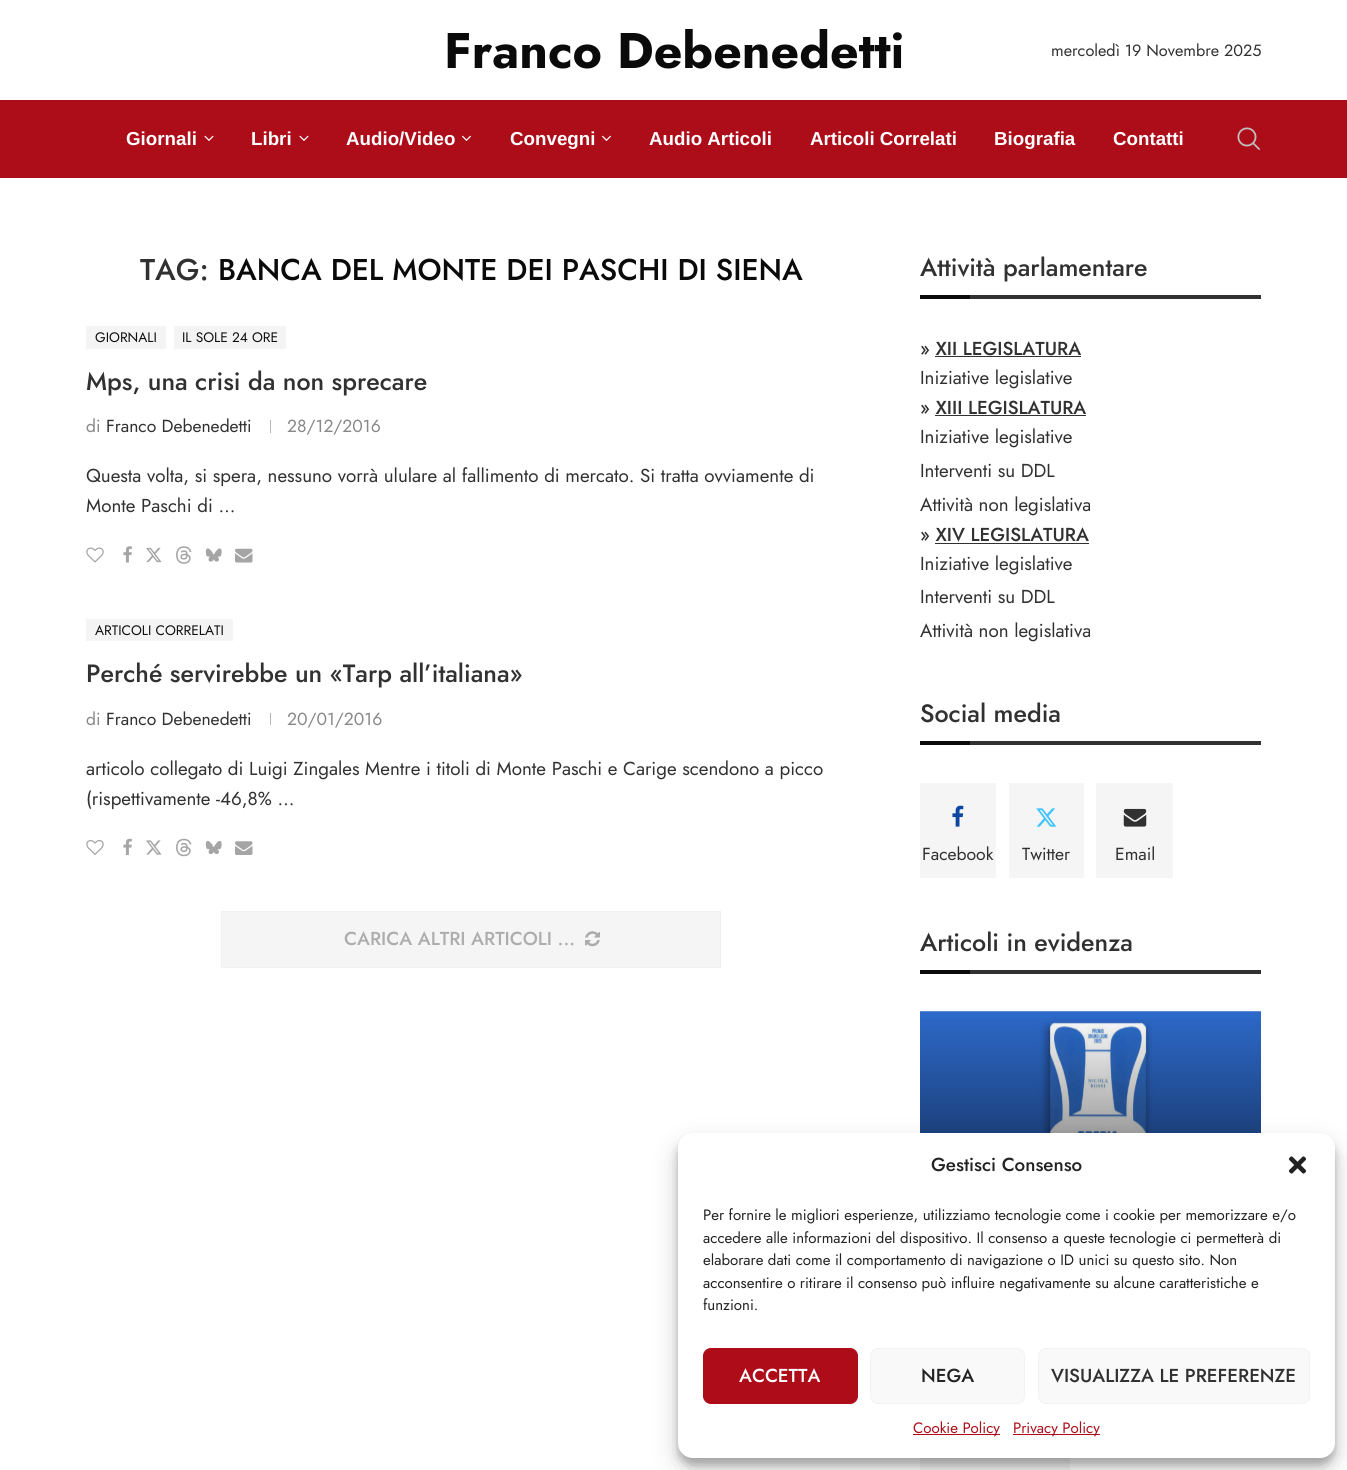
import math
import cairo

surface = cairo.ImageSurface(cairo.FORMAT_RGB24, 1347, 1470)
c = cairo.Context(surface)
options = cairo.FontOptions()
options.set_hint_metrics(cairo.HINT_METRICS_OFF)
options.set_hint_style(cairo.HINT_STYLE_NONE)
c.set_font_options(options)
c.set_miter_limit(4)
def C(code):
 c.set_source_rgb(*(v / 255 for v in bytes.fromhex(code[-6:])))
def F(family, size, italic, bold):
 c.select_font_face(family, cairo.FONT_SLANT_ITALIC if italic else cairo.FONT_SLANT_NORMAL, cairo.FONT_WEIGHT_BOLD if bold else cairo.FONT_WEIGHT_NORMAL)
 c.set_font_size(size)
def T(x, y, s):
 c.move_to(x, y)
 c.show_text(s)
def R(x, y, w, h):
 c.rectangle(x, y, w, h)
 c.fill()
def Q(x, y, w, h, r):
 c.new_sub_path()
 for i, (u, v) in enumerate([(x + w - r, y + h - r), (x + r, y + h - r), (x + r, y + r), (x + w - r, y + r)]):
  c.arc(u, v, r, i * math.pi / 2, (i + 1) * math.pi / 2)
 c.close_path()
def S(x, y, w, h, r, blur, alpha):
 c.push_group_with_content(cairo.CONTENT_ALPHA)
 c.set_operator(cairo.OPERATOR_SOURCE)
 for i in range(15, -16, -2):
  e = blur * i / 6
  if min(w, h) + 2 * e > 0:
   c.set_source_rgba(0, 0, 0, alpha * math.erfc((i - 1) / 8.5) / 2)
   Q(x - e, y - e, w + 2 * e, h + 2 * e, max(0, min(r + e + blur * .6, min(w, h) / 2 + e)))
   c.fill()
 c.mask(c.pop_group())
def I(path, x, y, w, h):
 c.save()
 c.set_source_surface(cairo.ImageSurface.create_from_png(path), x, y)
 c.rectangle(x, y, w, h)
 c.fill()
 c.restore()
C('ffffff')
c.paint()
F('Jost',50,0,1)
C('0a0a0a')
T(444,68,'Franco Debenedetti')
F('Jost',16.25,0,0)
C('313131')
T(1051,56,'mercoledì 19 Novembre 2025')
C('ad0d19')
R(0,100,1347,78)
F('Liberation Sans',18.75,0,1)
C('ffffff')
T(126,145,'Giornali')
I('1.png',204,135,10,6)
T(251,145,'Libri')
I('1.png',299,135,10,6)
T(346,145,'Audio/Video')
I('2.png',462,135,9,6)
T(510,145,'Convegni')
I('2.png',602,135,9,6)
T(649,145,'Audio Articoli')
T(810,145,'Articoli Correlati')
T(994,145,'Biografia')
T(1113,145,'Contatti')
I('3.png',1237,127,23,23)
F('Jost Medium',30,0,0)
C('313131')
T(140,280,'TAG:')
C('0a0a0a')
T(218,280,'BANCA DEL MONTE DEI PASCHI DI SIENA')
C('f4f4f4')
R(86,326,80,23)
F('Jost',13.75,0,0)
C('111111')
T(95,342,'GIORNALI')
C('f4f4f4')
R(174,326,112,23)
C('111111')
T(182,342,'IL SOLE 24 ORE')
F('Jost Medium',25,0,0)
C('313131')
T(86,390,'Mps, una crisi da non sprecare')
F('Jost',17.5,0,0)
C('888888')
T(86,432,'di')
C('313131')
T(106,432,'Franco Debenedetti')
C('b8b8b8')
R(270,420,1,13)
C('888888')
T(287,432,'28/12/2016')
F('Jost',18.75,0,0)
C('313131')
T(86,482,'Questa volta, si spera, nessuno vorrà ululare al fallimento di mercato. Si tratta ovviamente di')
T(86,512,'Monte Paschi di …')
I('4.png',86,547,18,16)
I('5.png',123,546,9,17)
I('6.png',146,547,16,16)
I('7.png',176,546,16,18)
I('8.png',205,548,17,14)
I('9.png',235,548,18,15)
C('f4f4f4')
R(86,619,147,22)
F('Jost',13.75,0,0)
C('111111')
T(95,635,'ARTICOLI CORRELATI')
F('Jost Medium',25,0,0)
C('313131')
T(86,682,'Perché servirebbe un «Tarp all’italiana»')
F('Jost',17.5,0,0)
C('888888')
T(86,725,'di')
C('313131')
T(106,725,'Franco Debenedetti')
C('b8b8b8')
R(270,713,1,12)
C('888888')
T(287,725,'20/01/2016')
F('Jost',18.75,0,0)
C('313131')
T(86,775,'articolo collegato di Luigi Zingales Mentre i titoli di Monte Paschi e Carige scendono a picco')
T(86,805,'(rispettivamente -46,8% …')
I('10.png',86,840,18,15)
I('11.png',123,838,9,17)
I('12.png',146,840,16,15)
I('13.png',176,838,16,19)
I('14.png',205,840,17,15)
I('15.png',235,841,18,14)
C('f5f5f5')
c.rectangle(221.5,911.5,499,56)
c.fill_preserve()
C('f0f0f0')
c.set_line_width(1)
c.stroke()
F('Jost Medium',18.75,0,0)
C('adadad')
T(344,945,'CARICA ALTRI ARTICOLI ...')
I('16.png',585,931,15,16)
C('313131')
R(970,295,291,4)
F('Jost Medium',25,0,0)
T(920,276,'Attività parlamentare')
C('0a0a0a')
R(920,295,50,4)
F('Jost Medium',18.75,0,0)
C('313131')
T(920,355,'» XII LEGISLATURA')
R(935,356,146,1)
F('Jost',18.75,0,0)
T(920,384,'Iniziative legislative')
F('Jost Medium',18.75,0,0)
T(920,414,'» XIII LEGISLATURA')
R(935,415,151,1)
F('Jost',18.75,0,0)
T(920,443,'Iniziative legislative')
T(920,477,'Interventi su DDL')
T(920,511,'Attività non legislativa')
F('Jost Medium',18.75,0,0)
T(920,541,'» XIV LEGISLATURA')
R(935,543,154,1)
F('Jost',18.75,0,0)
T(920,570,'Iniziative legislative')
T(920,603,'Interventi su DDL')
T(920,637,'Attività non legislativa')
R(970,741,291,4)
F('Jost Medium',25,0,0)
T(920,722,'Social media')
C('0a0a0a')
R(920,741,50,4)
C('f5f5f5')
R(920,783,76,95)
I('17.png',952,805,12,22)
F('Jost',17.5,0,0)
C('313131')
T(922,860,'Facebook')
C('f5f5f5')
R(1009,783,75,95)
I('18.png',1036,808,21,19)
C('313131')
T(1022,860,'Twitter')
C('f5f5f5')
R(1096,783,77,95)
I('19.png',1123,808,24,19)
C('313131')
T(1115,860,'Email')
R(970,970,291,4)
F('Jost Medium',25,0,0)
T(920,951,'Articoli in evidenza')
C('0a0a0a')
R(920,970,50,4)
I('20.png',920,1011,341,122)
gradient = cairo.LinearGradient(1091,1011,1091,1239)
gradient.add_color_stop_rgba(0,0,0,0,0)
gradient.add_color_stop_rgba(1,0,0,0,.7)
c.set_source(gradient)
R(920,1018,341,115)
C('f5f5f5')
R(920,1458,150,12)
C('000000')
S(678,1140,657,325,15,4,.23)
S(678,1145,657,325,15,12.5,.19)
C('ffffff')
Q(678,1133,657,325,15)
c.fill()
F('Jost Medium',18.75,0,0)
C('222222')
T(931,1171,'Gestisci Consenso')
I('21.png',1288,1156,19,18)
F('Jost',15,0,0)
T(703,1220,'Per fornire le migliori esperienze, utilizziamo tecnologie come i cookie per memorizzare e/o')
T(703,1243,'accedere alle informazioni del dispositivo. Il consenso a queste tecnologie ci permetterà di')
T(703,1265,'elaborare dati come il comportamento di navigazione o ID unici su questo sito. Non')
T(703,1288,'acconsentire o ritirare il consenso può influire negativamente su alcune caratteristiche e')
T(703,1310,'funzioni.')
C('ad0c18')
Q(703.5,1348.5,154,55,7.5)
c.fill_preserve()
c.stroke()
F('Jost Medium',18.75,0,0)
C('ffffff')
T(739,1382,'ACCETTA')
C('f9f9f9')
Q(870.5,1348.5,154,55,7.5)
c.fill_preserve()
C('f2f2f2')
c.stroke()
C('222222')
T(921,1382,'NEGA')
C('f9f9f9')
Q(1038.5,1348.5,271,55,7.5)
c.fill_preserve()
C('f2f2f2')
c.stroke()
C('313131')
T(1051,1382,'VISUALIZZA LE PREFERENZE')
C('ad0c18')
R(913,1434,87,1)
F('Jost',15,0,0)
T(913,1433,'Cookie Policy')
R(1013,1434,87,1)
T(1013,1433,'Privacy Policy')
surface.write_to_png('o.png')
